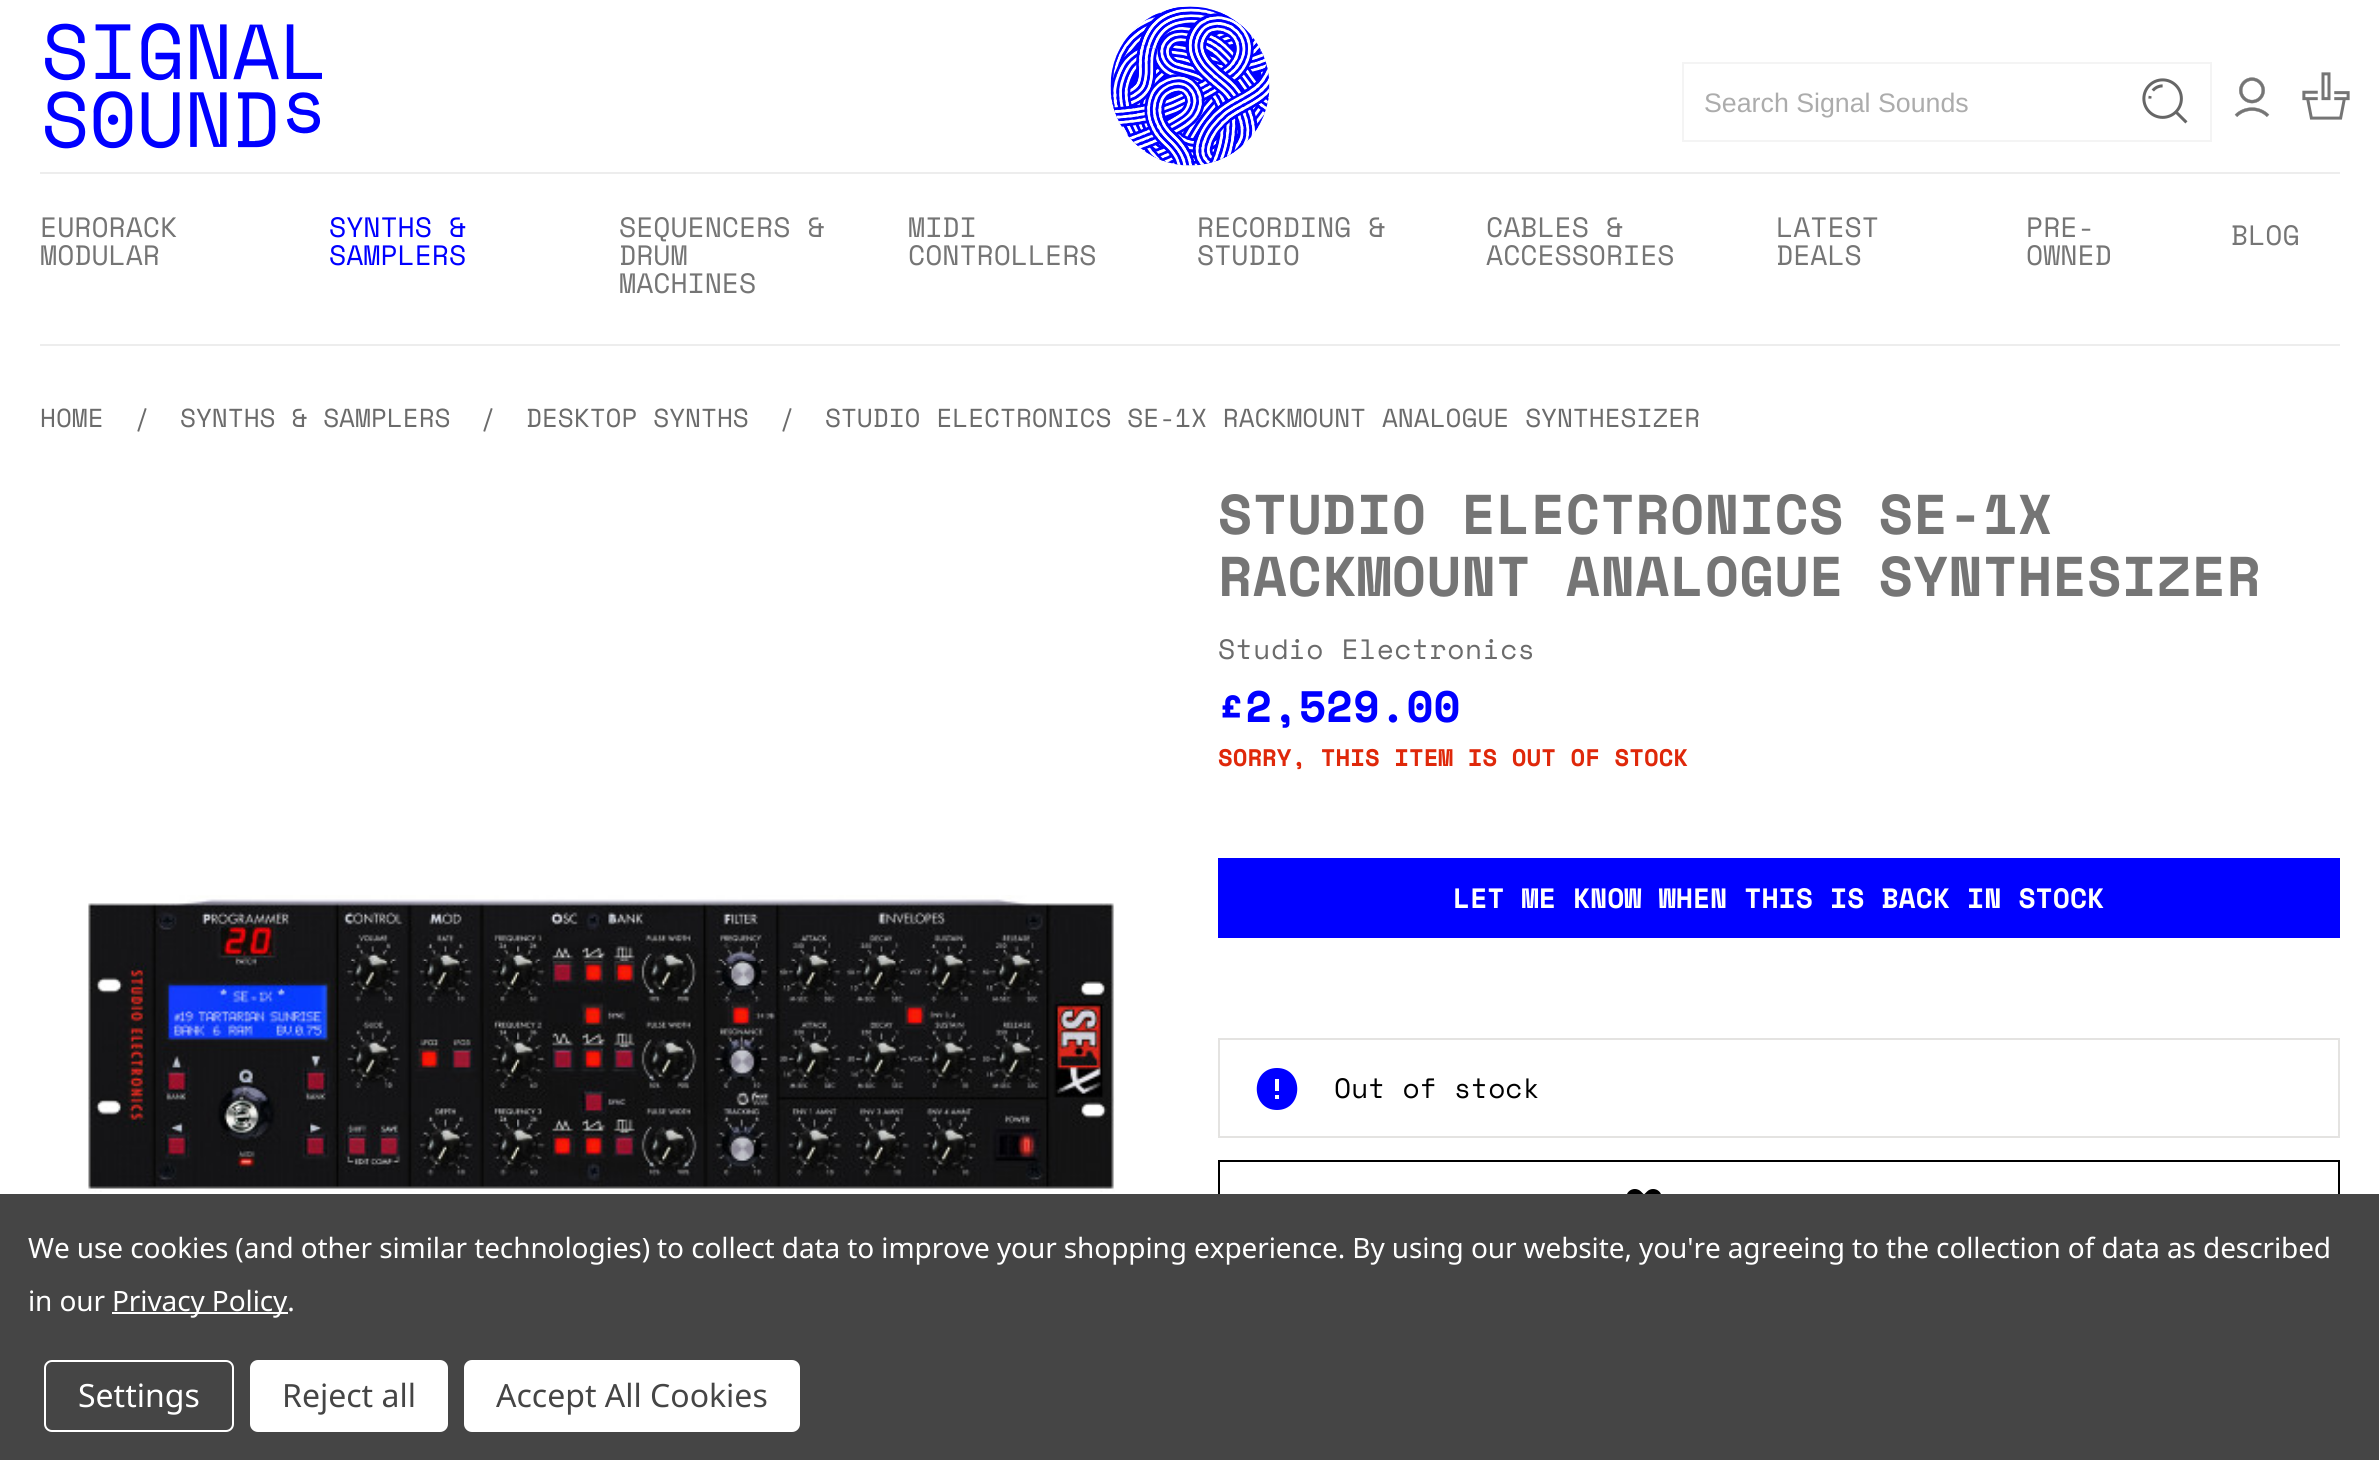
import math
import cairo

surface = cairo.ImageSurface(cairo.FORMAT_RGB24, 2379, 1460)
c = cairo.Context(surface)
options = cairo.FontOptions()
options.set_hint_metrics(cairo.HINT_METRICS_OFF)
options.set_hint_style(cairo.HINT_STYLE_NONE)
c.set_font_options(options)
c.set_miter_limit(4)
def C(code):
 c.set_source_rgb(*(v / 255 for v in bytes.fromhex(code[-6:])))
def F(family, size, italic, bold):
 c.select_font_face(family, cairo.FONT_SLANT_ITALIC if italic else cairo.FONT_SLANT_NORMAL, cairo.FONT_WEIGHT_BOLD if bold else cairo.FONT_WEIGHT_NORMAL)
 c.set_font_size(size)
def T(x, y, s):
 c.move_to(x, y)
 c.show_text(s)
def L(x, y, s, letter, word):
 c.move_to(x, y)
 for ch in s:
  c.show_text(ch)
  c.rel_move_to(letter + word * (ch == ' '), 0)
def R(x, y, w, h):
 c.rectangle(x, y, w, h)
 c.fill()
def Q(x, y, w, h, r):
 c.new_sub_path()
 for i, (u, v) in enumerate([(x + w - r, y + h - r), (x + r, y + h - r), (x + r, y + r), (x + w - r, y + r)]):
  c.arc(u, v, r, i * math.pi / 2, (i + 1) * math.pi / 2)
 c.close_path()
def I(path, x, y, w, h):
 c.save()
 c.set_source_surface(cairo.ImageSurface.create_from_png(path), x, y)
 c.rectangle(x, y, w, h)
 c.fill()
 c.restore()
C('ffffff')
c.paint()
I('1.png',1110,6,160,160)
I('2.png',45,23,277,126)
I('3.png',2142,78,46,46)
c.rectangle(1683,63,528,78)
C('f4f4f4')
c.stroke()
F('Liberation Sans',26.75,0,0)
C('acacac')
T(1704,112,'Search Signal Sounds')
I('4.png',2234,77,36,40)
I('5.png',2302,72,48,48)
C('ededed')
R(40,172,2300,2)
R(40,344,2300,2)
F('Space Mono',28,0,0)
C('757575')
T(40,237,'EURORACK')
T(40,265,'MODULAR')
C('0000ff')
T(329,237,'SYNTHS &')
T(329,265,'SAMPLERS')
C('757575')
T(619,237,'SEQUENCERS &')
T(619,265,'DRUM')
T(619,293,'MACHINES')
T(908,237,'MIDI')
T(908,265,'CONTROLLERS')
T(1197,237,'RECORDING &')
T(1197,265,'STUDIO')
T(1486,237,'CABLES &')
T(1486,265,'ACCESSORIES')
T(1776,237,'LATEST')
T(1776,265,'DEALS')
T(2026,237,'PRE-')
T(2026,265,'OWNED')
T(2231,245,'BLOG')
F('Space Mono',26,0,0)
C('6b6b6b')
T(40,427,'HOME')
T(134,429,'/')
T(180,427,'SYNTHS & SAMPLERS')
T(480,429,'/')
T(526,427,'DESKTOP SYNTHS')
T(779,429,'/')
T(825,427,'STUDIO ELECTRONICS SE-1X RACKMOUNT ANALOGUE SYNTHESIZER')
F('Space Mono',56,0,1)
C('757575')
L(1218,534,'STUDIO ELECTRONICS SE-1X',.5,0)
L(1218,596,'RACKMOUNT ANALOGUE SYNTHESIZER',.5,0)
F('Space Mono',28,0,0)
C('6b6b6b')
L(1218,659,'Studio Electronics',.5,0)
F('Space Mono',44,0,1)
C('0000ff')
T(1218,722,'£2,529.00')
F('Space Mono',24,0,1)
C('df280a')
T(1218,766,'SORRY, THIS ITEM IS OUT OF STOCK')
C('0000ff')
R(1218,858,1122,80)
F('Space Mono',28,0,1)
C('ffffff')
T(1453,908,'LET ME KNOW WHEN THIS IS BACK IN STOCK')
I('6.png',88,895,1027,297)
c.rectangle(1219,1039,1120,98)
C('e4e3e1')
c.stroke()
C('0000ff')
c.new_path()
c.move_to(1277,1068)
c.curve_to(1250,1068,1250,1110,1277,1110)
c.curve_to(1304,1110,1304,1068,1277,1068)
c.close_path()
c.move_to(1279,1099)
c.line_to(1275,1099)
c.line_to(1275,1095)
c.line_to(1279,1095)
c.close_path()
c.move_to(1279,1091)
c.line_to(1275,1091)
c.line_to(1275,1079)
c.line_to(1279,1079)
c.close_path()
c.fill()
F('Space Mono',28,0,0)
C('000000')
T(1334,1098,'Out of stock')
c.rectangle(1219,1161,1120,78)
c.stroke()
I('7.png',1627,1189,34,5)
C('454545')
R(0,1194,2379,266)
F('Noto Sans',28,0,0)
C('ffffff')
L(28,1258,'We use cookies (and other similar technologies) to collect data to improve your shopping experience. By using our website, you\'re agreeing to the collection of data as described',-.1,0)
L(28,1311,'in our',-.1,0)
R(112,1312,176,2)
L(112,1311,'Privacy Policy.',-.1,0)
Q(45,1361,188,70,7)
c.stroke()
F('Noto Sans',32,0,0)
T(78,1407,'Settings')
Q(250,1360,198,72,8)
c.fill()
C('454545')
T(282,1407,'Reject all')
C('ffffff')
Q(464,1360,336,72,8)
c.fill()
C('454545')
T(496,1407,'Accept All Cookies')
surface.write_to_png('o.png')
